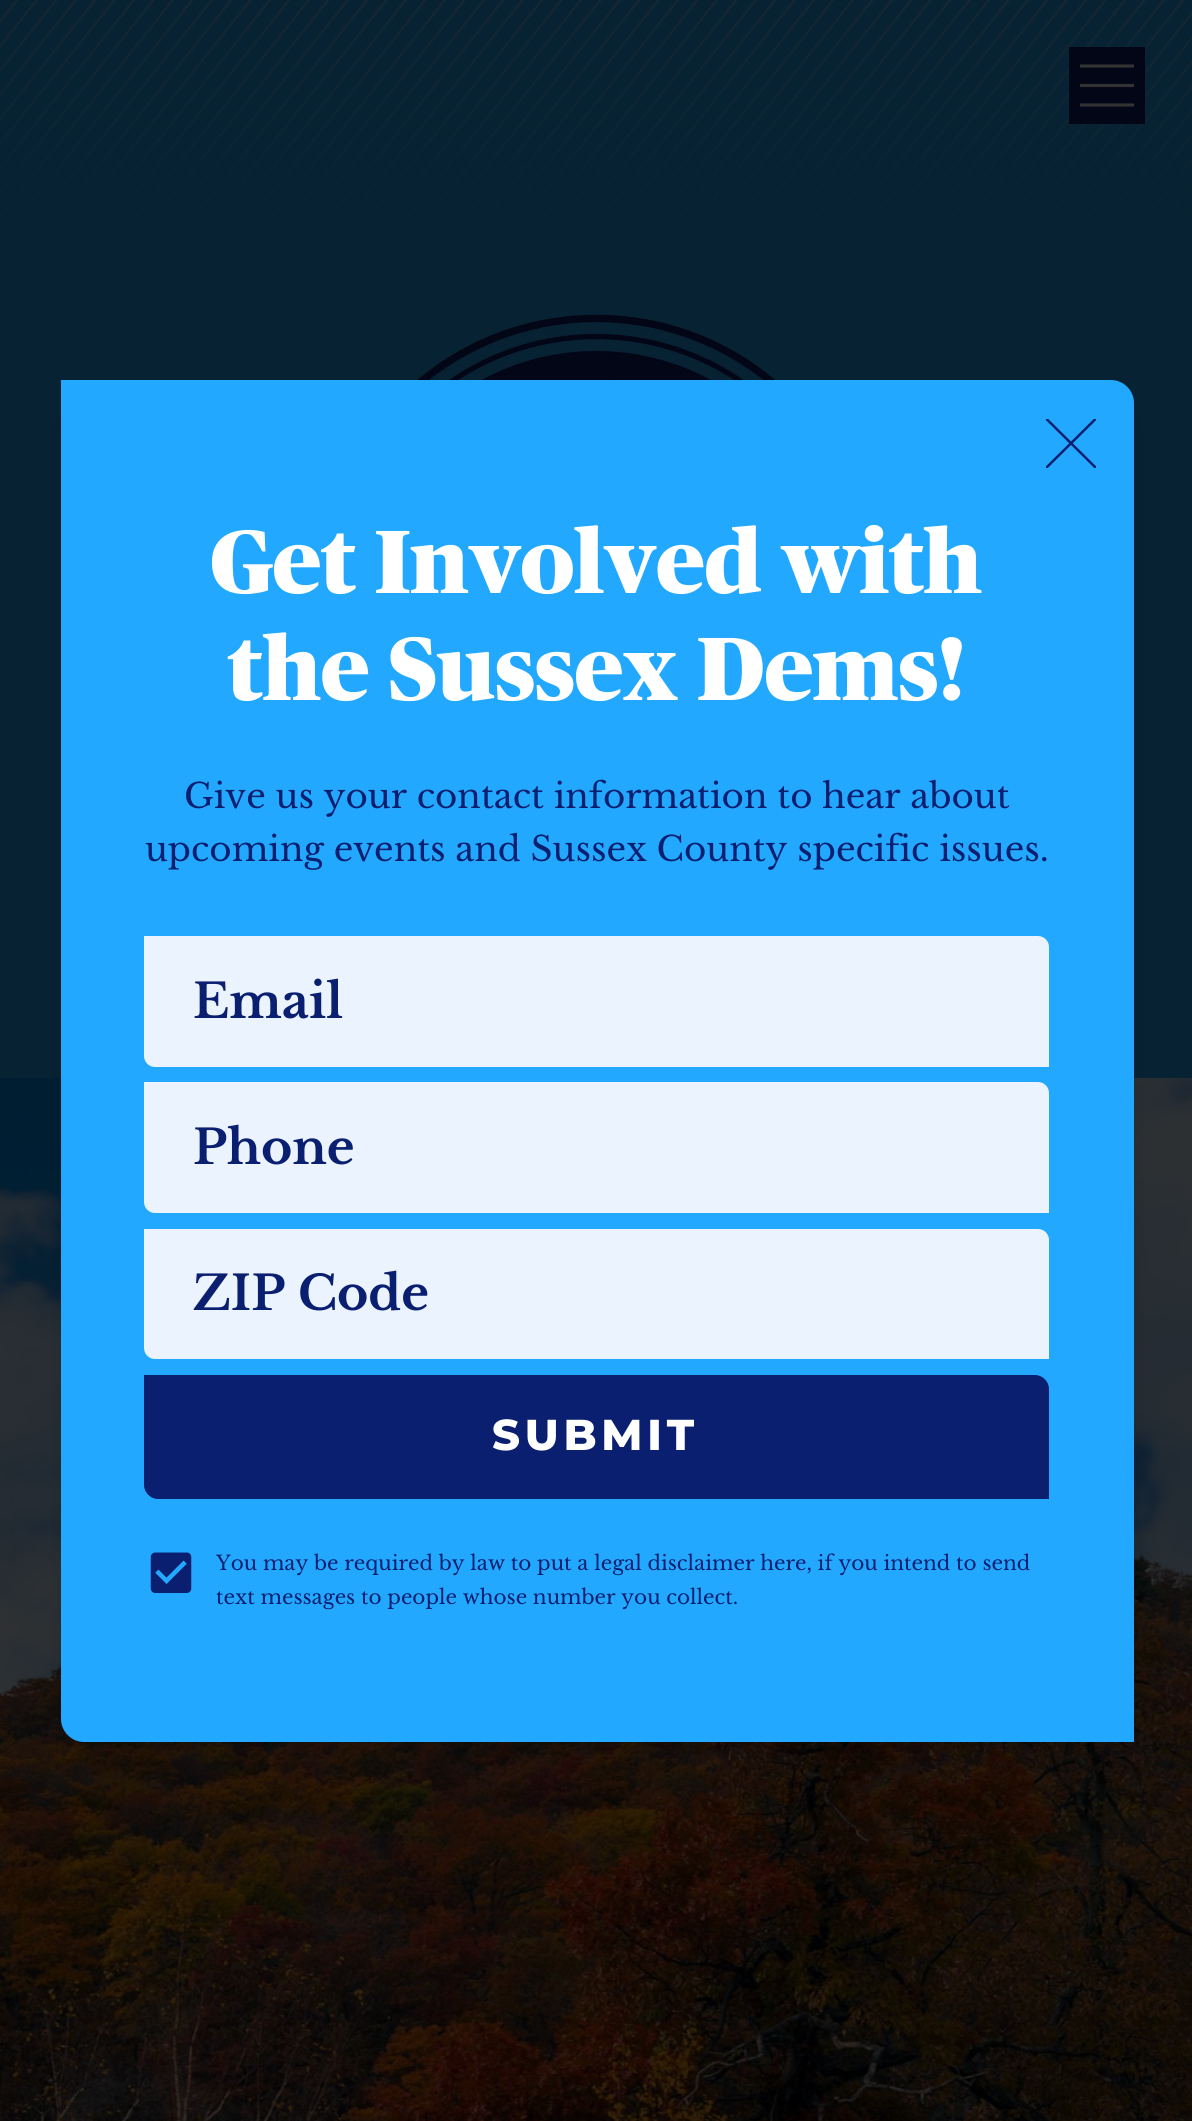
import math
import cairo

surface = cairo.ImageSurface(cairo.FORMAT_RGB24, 1192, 2121)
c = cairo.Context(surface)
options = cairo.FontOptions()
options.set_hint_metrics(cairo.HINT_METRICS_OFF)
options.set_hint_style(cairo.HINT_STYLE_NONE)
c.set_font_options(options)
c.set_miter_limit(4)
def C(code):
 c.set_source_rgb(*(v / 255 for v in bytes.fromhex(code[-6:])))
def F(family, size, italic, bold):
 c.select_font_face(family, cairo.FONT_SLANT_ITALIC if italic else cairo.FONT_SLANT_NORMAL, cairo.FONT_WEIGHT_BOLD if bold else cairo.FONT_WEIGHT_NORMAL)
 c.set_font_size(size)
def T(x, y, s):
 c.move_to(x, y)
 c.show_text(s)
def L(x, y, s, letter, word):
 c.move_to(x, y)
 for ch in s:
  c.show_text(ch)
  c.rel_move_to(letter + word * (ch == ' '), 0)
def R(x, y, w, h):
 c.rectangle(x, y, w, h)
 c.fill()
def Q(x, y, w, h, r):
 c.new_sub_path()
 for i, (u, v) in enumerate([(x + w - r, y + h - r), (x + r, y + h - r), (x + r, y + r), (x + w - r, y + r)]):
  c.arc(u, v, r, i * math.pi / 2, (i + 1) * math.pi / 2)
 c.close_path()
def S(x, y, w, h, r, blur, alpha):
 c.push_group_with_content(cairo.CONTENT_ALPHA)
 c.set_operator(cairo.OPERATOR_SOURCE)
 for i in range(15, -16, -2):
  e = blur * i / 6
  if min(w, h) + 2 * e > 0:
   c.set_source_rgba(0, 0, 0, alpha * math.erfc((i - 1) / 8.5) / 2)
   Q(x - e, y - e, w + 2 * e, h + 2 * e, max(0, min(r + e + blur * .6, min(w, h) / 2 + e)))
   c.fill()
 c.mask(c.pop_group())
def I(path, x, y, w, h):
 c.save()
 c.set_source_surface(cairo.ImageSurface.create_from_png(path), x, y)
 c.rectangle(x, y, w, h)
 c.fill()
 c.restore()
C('072233')
c.paint()
I('1.png',0,0,1192,289)
C('020616')
R(1069,47,76,77)
c.new_path()
c.move_to(1080,66)
c.line_to(1134,66)
c.move_to(1080,85.5)
c.line_to(1134,85.5)
c.move_to(1080,105)
c.line_to(1134,105)
C('333333')
c.set_line_width(3.1)
c.stroke()
I('2.png',417,314,359,66)
I('3.png',0,1077,1192,1044)
C('000000')
S(77,421,1041,1330,7,17,.2)
C('22a9ff')
c.new_path()
c.move_to(61,380)
c.line_to(1111,380)
c.curve_to(1123.5,380,1134,390.5,1134,403)
c.line_to(1134,1742)
c.line_to(84,1742)
c.curve_to(71.5,1742,61,1731.5,61,1719)
c.close_path()
c.fill()
c.save()
c.rectangle(1046,419,50,49)
c.clip()
c.new_path()
c.move_to(1046,418.5)
c.line_to(1096,468)
c.move_to(1046,468)
c.line_to(1096,418.5)
C('0b1f70')
c.set_line_width(2.5)
c.stroke()
c.restore()
F('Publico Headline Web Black',89.5,0,0)
C('ffffff')
T(210,593,'Get Involved with')
T(228,700,'the Sussex Dems!')
F('Libre Baskerville',38.4,0,0)
C('0b1f70')
T(184,808,'Give us your contact information to hear about')
T(145,861,'upcoming events and Sussex County specific issues.')
C('ebf3ff')
c.new_path()
c.move_to(145,937)
c.line_to(1038,937)
c.curve_to(1043.5,937,1048,941.5,1048,947)
c.line_to(1048,1066)
c.line_to(155,1066)
c.curve_to(149.5,1066,145,1061.5,145,1056)
c.close_path()
c.fill_preserve()
c.set_line_width(2)
c.stroke()
F('Libre Baskerville',47.5,0,1)
C('0b1f70')
T(193,1018,'Email')
C('ebf3ff')
c.new_path()
c.move_to(145,1083)
c.line_to(1038,1083)
c.curve_to(1043.5,1083,1048,1087.5,1048,1093)
c.line_to(1048,1212)
c.line_to(155,1212)
c.curve_to(149.5,1212,145,1207.5,145,1202)
c.close_path()
c.fill_preserve()
c.stroke()
C('0b1f70')
T(193,1164,'Phone')
C('ebf3ff')
c.new_path()
c.move_to(145,1230)
c.line_to(1038,1230)
c.curve_to(1043.5,1230,1048,1234.5,1048,1240)
c.line_to(1048,1358)
c.line_to(155,1358)
c.curve_to(149.5,1358,145,1353.5,145,1348)
c.close_path()
c.fill_preserve()
c.stroke()
C('0b1f70')
T(193,1310,'ZIP Code')
c.new_path()
c.move_to(144,1375)
c.line_to(1035,1375)
c.curve_to(1042.5,1375,1049,1381.5,1049,1389)
c.line_to(1049,1499)
c.line_to(158,1499)
c.curve_to(150.5,1499,144,1492.5,144,1485)
c.close_path()
c.fill()
F('Montserrat ExtraBold',47.5,0,0)
C('ffffff')
L(492,1450,'SUBMIT',4.75,0)
I('4.png',150,1552,42,41)
F('Libre Baskerville',22.5,0,0)
C('0b1f70')
T(216,1570,'You may be required by law to put a legal disclaimer here, if you intend to send')
T(216,1604,'text messages to people whose number you collect.')
surface.write_to_png('o.png')
